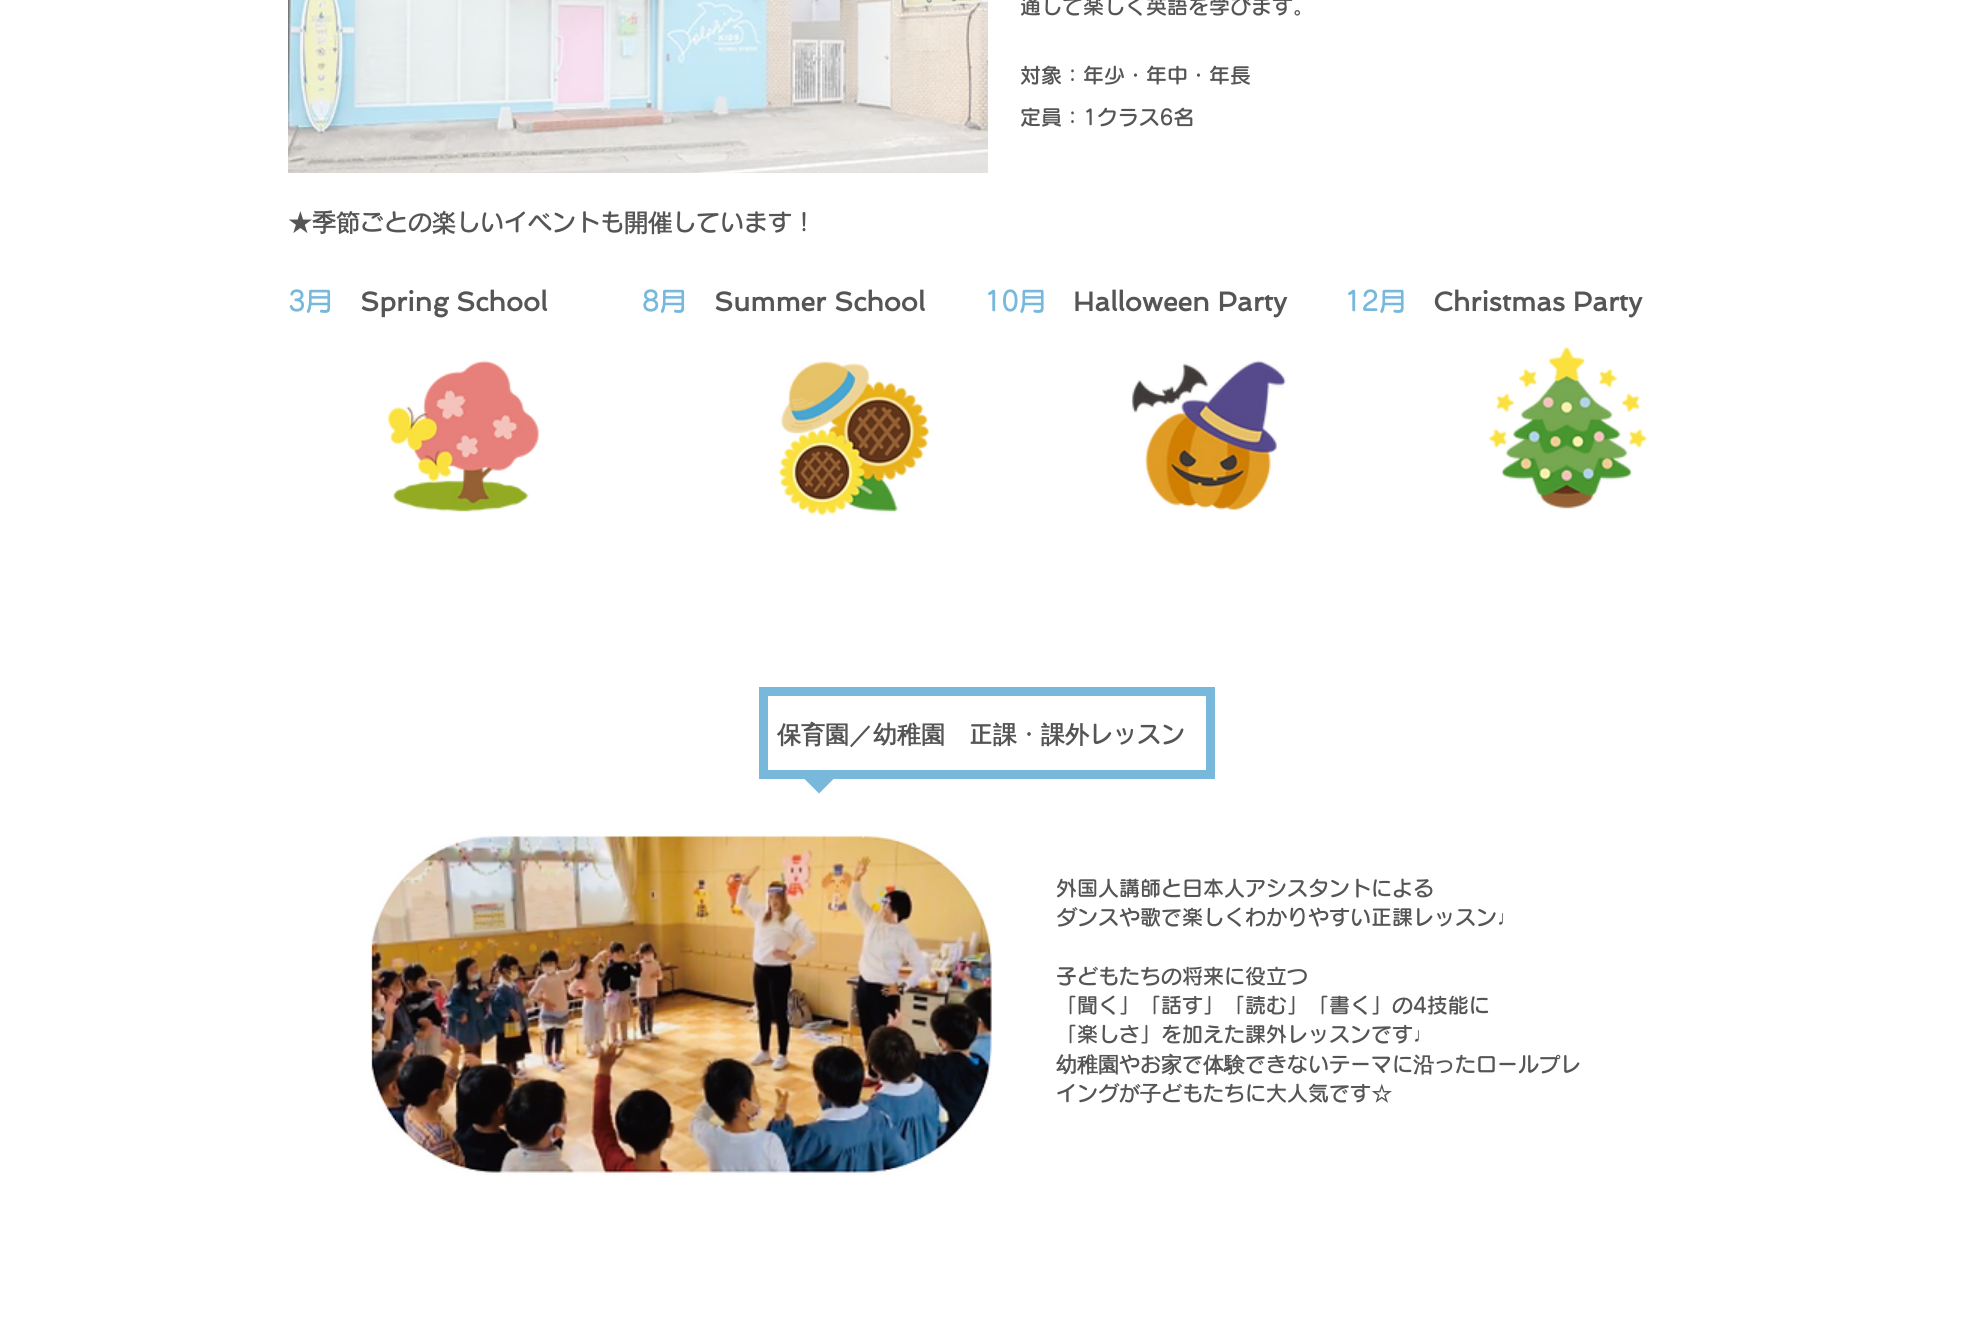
import math
import cairo

surface = cairo.ImageSurface(cairo.FORMAT_RGB24, 1961, 1333)
c = cairo.Context(surface)
options = cairo.FontOptions()
options.set_hint_metrics(cairo.HINT_METRICS_OFF)
options.set_hint_style(cairo.HINT_STYLE_NONE)
c.set_font_options(options)
c.set_miter_limit(4)
def C(code):
 c.set_source_rgb(*(v / 255 for v in bytes.fromhex(code[-6:])))
def F(family, size, italic, bold):
 c.select_font_face(family, cairo.FONT_SLANT_ITALIC if italic else cairo.FONT_SLANT_NORMAL, cairo.FONT_WEIGHT_BOLD if bold else cairo.FONT_WEIGHT_NORMAL)
 c.set_font_size(size)
def T(x, y, s):
 c.move_to(x, y)
 c.show_text(s)
def I(path, x, y, w, h):
 c.save()
 c.set_source_surface(cairo.ImageSurface.create_from_png(path), x, y)
 c.rectangle(x, y, w, h)
 c.fill()
 c.restore()
C('ffffff')
c.paint()
I('1.png',288,0,700,173)
F('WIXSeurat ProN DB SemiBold',21,0,0)
C('555555')
T(1020,14,'通して楽しく英語を学びます。')
T(1020,83,'対象：年少・年中・年長')
T(1020,125,'定員：1クラス6名')
F('WenQuanYi Zen Hei',24,0,1)
T(288,231,'★季節')
F('WIXSeurat ProN DB SemiBold',24,0,0)
T(360,231,'ごとの')
F('WenQuanYi Zen Hei',24,0,1)
T(432,231,'楽')
F('WIXSeurat ProN DB SemiBold',24,0,0)
T(456,231,'しいイベントも')
F('WenQuanYi Zen Hei',24,0,1)
T(624,231,'開催')
F('WIXSeurat ProN DB SemiBold',24,0,0)
T(672,231,'しています！')
F('WIXSeurat ProN DB SemiBold',27,0,0)
C('77b8db')
T(288,311,'3月')
F('Spinnaker',27,0,1)
C('555555')
T(360,311,'Spring School')
F('WIXSeurat ProN DB SemiBold',27,0,0)
C('77b8db')
T(642,311,'8月')
F('Spinnaker',27,0,1)
C('555555')
T(714,311,'Summer School')
F('WIXSeurat ProN DB SemiBold',27,0,0)
C('77b8db')
T(984,311,'10月')
F('Spinnaker',27,0,1)
C('555555')
T(1073,311,'Halloween Party')
F('WIXSeurat ProN DB SemiBold',27,0,0)
C('77b8db')
T(1344,311,'12月')
F('Spinnaker',27,0,1)
C('555555')
T(1433,311,'Christmas Party')
I('2.png',388,360,151,152)
I('3.png',778,361,151,155)
I('4.png',1131,360,155,151)
I('5.png',1488,347,160,162)
c.rectangle(763.5,691.5,447,83)
C('77b8db')
c.set_line_width(9)
c.stroke()
F('WenQuanYi Zen Hei',24,0,1)
C('555555')
T(777,743,'保育園／幼稚園')
F('WIXSeurat ProN DB SemiBold',24,0,0)
T(969,743,'正')
F('WenQuanYi Zen Hei',24,0,1)
T(993,743,'課')
F('WIXSeurat ProN DB SemiBold',24,0,0)
T(1017,743,'・')
F('WenQuanYi Zen Hei',24,0,1)
T(1041,743,'課外')
F('WIXSeurat ProN DB SemiBold',24,0,0)
T(1089,743,'レッスン')
C('77b8db')
c.new_path()
c.move_to(804,778.5)
c.line_to(834,778.5)
c.line_to(819,793.5)
c.close_path()
c.fill()
I('6.png',370,835,622,340)
F('WIXSeurat ProN DB SemiBold',21,0,0)
C('555555')
T(1056,896,'外国人講師と日本人アシスタントによる')
T(1056,925,'ダンスや歌で楽しくわかりやすい正課レッスン')
F('Liberation Sans',21,0,1)
T(1497,925,'♩')
F('WIXSeurat ProN DB SemiBold',21,0,0)
T(1056,984,'子どもたちの将来に役立つ')
T(1056,1013,'「聞く」「話す」「読む」「書く」の4技能に')
T(1056,1042,'「楽しさ」を加えた課外レッスンです')
F('Liberation Sans',21,0,1)
T(1413,1042,'♩')
F('WenQuanYi Zen Hei',21,0,1)
T(1056,1072,'幼稚園')
F('WIXSeurat ProN DB SemiBold',21,0,0)
T(1119,1072,'やお')
F('WenQuanYi Zen Hei',21,0,1)
T(1161,1072,'家')
F('WIXSeurat ProN DB SemiBold',21,0,0)
T(1182,1072,'で')
F('WenQuanYi Zen Hei',21,0,1)
T(1203,1072,'体験')
F('WIXSeurat ProN DB SemiBold',21,0,0)
T(1245,1072,'できないテーマに')
F('WenQuanYi Zen Hei',21,0,1)
T(1413,1072,'沿')
F('WIXSeurat ProN DB SemiBold',21,0,0)
T(1434,1072,'ったロールプレ')
T(1056,1101,'イングが')
F('WenQuanYi Zen Hei',21,0,1)
T(1140,1101,'子')
F('WIXSeurat ProN DB SemiBold',21,0,0)
T(1161,1101,'どもたちに大人気です')
F('WenQuanYi Zen Hei',21,0,1)
T(1371,1101,'☆')
surface.write_to_png('o.png')
